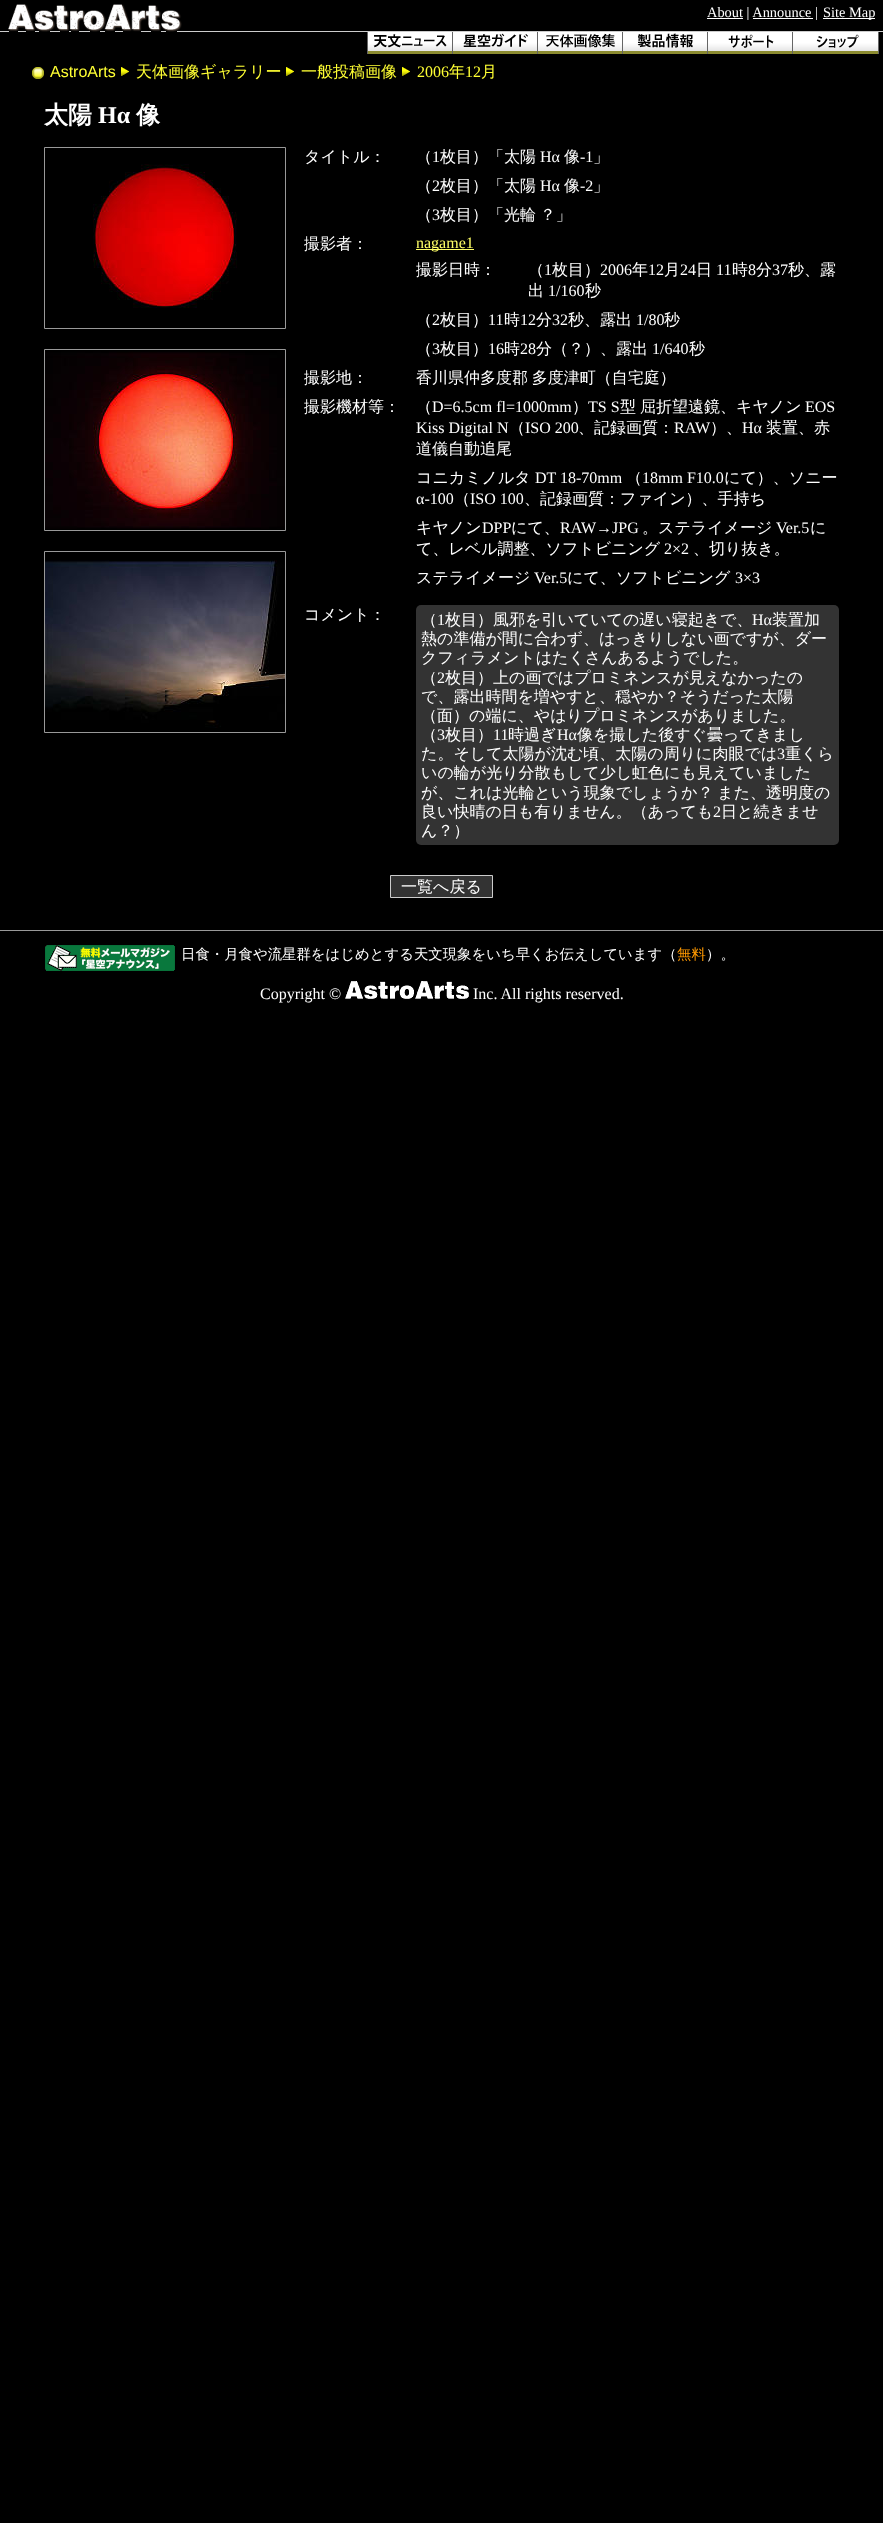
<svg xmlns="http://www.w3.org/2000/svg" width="883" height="2523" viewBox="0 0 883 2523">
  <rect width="100%" height="100%" fill="#000"/>
  <path d="M0 31h883v1H0z" fill="#ccc"/>
  <image x="8" y="4" width="174" height="28" href="img/1.png"/>
  <path d="M707 18h36v1H707z" fill="#fff"/>
  <path d="M823 18h52v1H823z" fill="#fff"/>
  <path d="M753 18h60v1H753z" fill="#fff"/>
  <path d="M367 32h1v22H367z" fill="#666"/>
  <image x="368" y="32" width="84" height="19" href="img/2.png"/>
  <path d="M368 51h84v3H368z" fill="#8b8b30"/>
  <path d="M452 32h1v22H452z" fill="#666"/>
  <image x="453" y="32" width="84" height="19" href="img/3.png"/>
  <path d="M453 51h84v3H453z" fill="#8b8b30"/>
  <path d="M537 32h1v22H537z" fill="#666"/>
  <image x="538" y="32" width="84" height="19" href="img/4.png"/>
  <path d="M538 51h84v3H538z" fill="#8b8b30"/>
  <path d="M622 32h1v22H622z" fill="#666"/>
  <image x="623" y="32" width="84" height="19" href="img/5.png"/>
  <path d="M623 51h84v3H623z" fill="#8b8b30"/>
  <path d="M707 32h1v22H707z" fill="#666"/>
  <image x="708" y="32" width="84" height="19" href="img/6.png"/>
  <path d="M708 51h84v3H708z" fill="#8b8b30"/>
  <path d="M792 32h1v22H792z" fill="#666"/>
  <image x="793" y="32" width="85" height="19" href="img/7.png"/>
  <path d="M878 32h1v22H878z" fill="#666"/>
  <path d="M793 51h85v3H793z" fill="#8b8b30"/>
  <image x="32" y="67" width="12" height="12" href="img/8.png"/>
  <image x="121" y="67" width="8" height="9" href="img/9.png"/>
  <image x="286" y="67" width="8" height="9" href="img/9.png"/>
  <image x="402" y="67" width="8" height="9" href="img/9.png"/>
  <path d="M44.5 147.5h241v181H44.5z" fill="none" stroke="#999"/>
  <image x="93" y="164" width="144" height="144" href="img/10.png"/>
  <path d="M44.5 349.5h241v181H44.5z" fill="none" stroke="#999"/>
  <image x="45" y="351" width="240" height="178" href="img/11.png"/>
  <path d="M44.5 551.5h241v181H44.5z" fill="none" stroke="#999"/>
  <image x="45" y="560" width="240" height="168" href="img/12.png"/>
  <path d="M416 249h58v1H416z" fill="#ff6"/>
  <rect x="416" y="605" width="423" height="240" rx="5" fill="#333"/>
  <path d="M390.5 875.5h102v22H390.5z" fill="#333" stroke="#ccc"/>
  <path d="M0 930h883v1H0z" fill="#999"/>
  <image x="45" y="945" width="130" height="26" href="img/13.png"/>
  <image x="345" y="981" width="124" height="18" href="img/14.png"/>
  <g font-family="Liberation Serif" font-size="14.4" fill="#fff">
    <text x="707" y="17">About | Announce |</text>
    <text x="823" y="17">Site Map</text>
  </g>
  <text x="50" y="77" font-family="Liberation Sans" font-size="16" fill="#ff3">AstroArts</text>
  <g font-family="WenQuanYi Zen Hei" font-size="16" font-weight="500" fill="#ff3">
    <text x="136" y="77">天体画像ギャラリー</text>
    <text x="301" y="77">一般投稿画像</text>
  </g>
  <text x="417" y="77" font-family="Liberation Serif" font-size="16" fill="#ff3">2006</text>
  <text x="449" y="77" font-family="WenQuanYi Zen Hei" font-size="16" font-weight="500" fill="#ff3">年</text>
  <text x="465" y="77" font-family="Liberation Serif" font-size="16" fill="#ff3">12</text>
  <text x="481" y="77" font-family="WenQuanYi Zen Hei" font-size="16" font-weight="500" fill="#ff3">月</text>
  <text x="44" y="123" font-family="WenQuanYi Zen Hei" font-size="24" font-weight="bold" fill="#fff">太陽</text>
  <text x="98" y="123" font-family="Liberation Serif" font-size="24" font-weight="bold" fill="#fff">Hα</text>
  <text x="136" y="123" font-family="WenQuanYi Zen Hei" font-size="24" font-weight="bold" fill="#fff">像</text>
  <g font-family="WenQuanYi Zen Hei" font-size="16" font-weight="500" fill="#fff">
    <text x="304" y="162">タイトル：</text>
    <text x="416" y="162">（</text>
  </g>
  <text x="432" y="162" font-family="Liberation Serif" font-size="16" fill="#fff">1</text>
  <text x="440" y="162" font-family="WenQuanYi Zen Hei" font-size="16" font-weight="500" fill="#fff">枚目）「太陽</text>
  <text x="540" y="162" font-family="Liberation Serif" font-size="16" fill="#fff">Hα</text>
  <text x="564" y="162" font-family="WenQuanYi Zen Hei" font-size="16" font-weight="500" fill="#fff">像</text>
  <text x="580" y="162" font-family="Liberation Serif" font-size="16" fill="#fff">-1</text>
  <g font-family="WenQuanYi Zen Hei" font-size="16" font-weight="500" fill="#fff">
    <text x="593" y="162">」</text>
    <text x="416" y="191">（</text>
  </g>
  <text x="432" y="191" font-family="Liberation Serif" font-size="16" fill="#fff">2</text>
  <text x="440" y="191" font-family="WenQuanYi Zen Hei" font-size="16" font-weight="500" fill="#fff">枚目）「太陽</text>
  <text x="540" y="191" font-family="Liberation Serif" font-size="16" fill="#fff">Hα</text>
  <text x="564" y="191" font-family="WenQuanYi Zen Hei" font-size="16" font-weight="500" fill="#fff">像</text>
  <text x="580" y="191" font-family="Liberation Serif" font-size="16" fill="#fff">-2</text>
  <g font-family="WenQuanYi Zen Hei" font-size="16" font-weight="500" fill="#fff">
    <text x="593" y="191">」</text>
    <text x="416" y="220">（</text>
  </g>
  <text x="432" y="220" font-family="Liberation Serif" font-size="16" fill="#fff">3</text>
  <g font-family="WenQuanYi Zen Hei" font-size="16" font-weight="500" fill="#fff">
    <text x="440" y="220" word-spacing="-1">枚目）「光輪 ？」</text>
    <text x="304" y="249">撮影者：</text>
  </g>
  <text x="416" y="248" font-family="Liberation Serif" font-size="16" fill="#ff6">nagame1</text>
  <g font-family="WenQuanYi Zen Hei" font-size="16" font-weight="500" fill="#fff">
    <text x="416" y="275">撮影日時：</text>
    <text x="528" y="275">（</text>
  </g>
  <text x="544" y="275" font-family="Liberation Serif" font-size="16" fill="#fff">1</text>
  <text x="552" y="275" font-family="WenQuanYi Zen Hei" font-size="16" font-weight="500" fill="#fff">枚目）</text>
  <text x="600" y="275" font-family="Liberation Serif" font-size="16" fill="#fff">2006</text>
  <text x="632" y="275" font-family="WenQuanYi Zen Hei" font-size="16" font-weight="500" fill="#fff">年</text>
  <text x="648" y="275" font-family="Liberation Serif" font-size="16" fill="#fff">12</text>
  <text x="664" y="275" font-family="WenQuanYi Zen Hei" font-size="16" font-weight="500" fill="#fff">月</text>
  <text x="680" y="275" font-family="Liberation Serif" font-size="16" fill="#fff">24</text>
  <text x="696" y="275" font-family="WenQuanYi Zen Hei" font-size="16" font-weight="500" fill="#fff">日</text>
  <text x="716" y="275" font-family="Liberation Serif" font-size="16" fill="#fff">11</text>
  <text x="732" y="275" font-family="WenQuanYi Zen Hei" font-size="16" font-weight="500" fill="#fff">時</text>
  <text x="748" y="275" font-family="Liberation Serif" font-size="16" fill="#fff">8</text>
  <text x="756" y="275" font-family="WenQuanYi Zen Hei" font-size="16" font-weight="500" fill="#fff">分</text>
  <text x="772" y="275" font-family="Liberation Serif" font-size="16" fill="#fff">37</text>
  <g font-family="WenQuanYi Zen Hei" font-size="16" font-weight="500" fill="#fff">
    <text x="788" y="275">秒、露</text>
    <text x="528" y="296">出</text>
  </g>
  <text x="548" y="296" font-family="Liberation Serif" font-size="16" fill="#fff">1/160</text>
  <g font-family="WenQuanYi Zen Hei" font-size="16" font-weight="500" fill="#fff">
    <text x="585" y="296">秒</text>
    <text x="416" y="325">（</text>
  </g>
  <text x="432" y="325" font-family="Liberation Serif" font-size="16" fill="#fff">2</text>
  <text x="440" y="325" font-family="WenQuanYi Zen Hei" font-size="16" font-weight="500" fill="#fff">枚目）</text>
  <text x="488" y="325" font-family="Liberation Serif" font-size="16" fill="#fff">11</text>
  <text x="504" y="325" font-family="WenQuanYi Zen Hei" font-size="16" font-weight="500" fill="#fff">時</text>
  <text x="520" y="325" font-family="Liberation Serif" font-size="16" fill="#fff">12</text>
  <text x="536" y="325" font-family="WenQuanYi Zen Hei" font-size="16" font-weight="500" fill="#fff">分</text>
  <text x="552" y="325" font-family="Liberation Serif" font-size="16" fill="#fff">32</text>
  <text x="568" y="325" font-family="WenQuanYi Zen Hei" font-size="16" font-weight="500" fill="#fff">秒、露出</text>
  <text x="636" y="325" font-family="Liberation Serif" font-size="16" fill="#fff">1/80</text>
  <g font-family="WenQuanYi Zen Hei" font-size="16" font-weight="500" fill="#fff">
    <text x="664" y="325">秒</text>
    <text x="416" y="354">（</text>
  </g>
  <text x="432" y="354" font-family="Liberation Serif" font-size="16" fill="#fff">3</text>
  <text x="440" y="354" font-family="WenQuanYi Zen Hei" font-size="16" font-weight="500" fill="#fff">枚目）</text>
  <text x="488" y="354" font-family="Liberation Serif" font-size="16" fill="#fff">16</text>
  <text x="504" y="354" font-family="WenQuanYi Zen Hei" font-size="16" font-weight="500" fill="#fff">時</text>
  <text x="520" y="354" font-family="Liberation Serif" font-size="16" fill="#fff">28</text>
  <text x="536" y="354" font-family="WenQuanYi Zen Hei" font-size="16" font-weight="500" fill="#fff">分（？）、露出</text>
  <text x="652" y="354" font-family="Liberation Serif" font-size="16" fill="#fff">1/640</text>
  <g font-family="WenQuanYi Zen Hei" font-size="16" font-weight="500" fill="#fff">
    <text x="689" y="354">秒</text>
    <text x="304" y="383">撮影地：</text>
    <text x="416" y="383" word-spacing="-1">香川県仲多度郡 多度津町（自宅庭）</text>
    <text x="304" y="412">撮影機材等：</text>
    <text x="416" y="412">（</text>
  </g>
  <text x="432" y="412" font-family="Liberation Serif" font-size="16" fill="#fff">D=6.5cm fl=1000mm</text>
  <text x="572" y="412" font-family="WenQuanYi Zen Hei" font-size="16" font-weight="500" fill="#fff">）</text>
  <text x="588" y="412" font-family="Liberation Serif" font-size="16" fill="#fff">TS S</text>
  <g font-family="WenQuanYi Zen Hei" font-size="16" font-weight="500" fill="#fff">
    <text x="620" y="412">型</text>
    <text x="640" y="412">屈折望遠鏡、キヤノン</text>
  </g>
  <g font-family="Liberation Serif" font-size="16" fill="#fff">
    <text x="805" y="412">EOS</text>
    <text x="416" y="433">Kiss Digital N</text>
  </g>
  <text x="509" y="433" font-family="WenQuanYi Zen Hei" font-size="16" font-weight="500" fill="#fff">（</text>
  <text x="525" y="433" font-family="Liberation Serif" font-size="16" fill="#fff">ISO 200</text>
  <text x="578" y="433" font-family="WenQuanYi Zen Hei" font-size="16" font-weight="500" fill="#fff">、記録画質：</text>
  <text x="674" y="433" font-family="Liberation Serif" font-size="16" fill="#fff">RAW</text>
  <text x="710" y="433" font-family="WenQuanYi Zen Hei" font-size="16" font-weight="500" fill="#fff">）、</text>
  <text x="742" y="433" font-family="Liberation Serif" font-size="16" fill="#fff">Hα</text>
  <g font-family="WenQuanYi Zen Hei" font-size="16" font-weight="500" fill="#fff">
    <text x="766" y="433">装置、赤</text>
    <text x="416" y="454">道儀自動追尾</text>
    <text x="416" y="483">コニカミノルタ</text>
  </g>
  <text x="535" y="483" font-family="Liberation Serif" font-size="16" fill="#fff">DT 18-70mm</text>
  <text x="626" y="483" font-family="WenQuanYi Zen Hei" font-size="16" font-weight="500" fill="#fff">（</text>
  <text x="642" y="483" font-family="Liberation Serif" font-size="16" fill="#fff">18mm F10.0</text>
  <text x="724" y="483" font-family="WenQuanYi Zen Hei" font-size="16" font-weight="500" fill="#fff">にて）、ソニー</text>
  <text x="416" y="504" font-family="Liberation Serif" font-size="16" fill="#fff">α-100</text>
  <text x="454" y="504" font-family="WenQuanYi Zen Hei" font-size="16" font-weight="500" fill="#fff">（</text>
  <text x="470" y="504" font-family="Liberation Serif" font-size="16" fill="#fff">ISO 100</text>
  <g font-family="WenQuanYi Zen Hei" font-size="16" font-weight="500" fill="#fff">
    <text x="524" y="504">、記録画質：ファイン）、手持ち</text>
    <text x="416" y="533">キヤノン</text>
  </g>
  <text x="482" y="533" font-family="Liberation Serif" font-size="16" fill="#fff">DPP</text>
  <text x="511" y="533" font-family="WenQuanYi Zen Hei" font-size="16" font-weight="500" fill="#fff">にて、</text>
  <text x="560" y="533" font-family="Liberation Serif" font-size="16" fill="#fff">RAW→JPG</text>
  <text x="642" y="533" font-family="WenQuanYi Zen Hei" font-size="16" font-weight="500" fill="#fff">。ステライメージ</text>
  <text x="776" y="533" font-family="Liberation Serif" font-size="16" fill="#fff">Ver.5</text>
  <g font-family="WenQuanYi Zen Hei" font-size="16" font-weight="500" fill="#fff">
    <text x="810" y="533">に</text>
    <text x="416" y="554">て、レベル調整、ソフトビニング</text>
  </g>
  <text x="664" y="554" font-family="Liberation Serif" font-size="16" fill="#fff">2×2</text>
  <g font-family="WenQuanYi Zen Hei" font-size="16" font-weight="500" fill="#fff">
    <text x="693" y="554">、切り抜き。</text>
    <text x="416" y="583">ステライメージ</text>
  </g>
  <text x="534" y="583" font-family="Liberation Serif" font-size="16" fill="#fff">Ver.5</text>
  <text x="567" y="583" font-family="WenQuanYi Zen Hei" font-size="16" font-weight="500" fill="#fff">にて、ソフトビニング</text>
  <text x="735" y="583" font-family="Liberation Serif" font-size="16" fill="#fff">3×3</text>
  <g font-family="WenQuanYi Zen Hei" font-size="16" font-weight="500" fill="#fff">
    <text x="304" y="620">コメント：</text>
    <text x="421" y="625">（</text>
  </g>
  <text x="437" y="625" font-family="Liberation Serif" font-size="16" fill="#fff">1</text>
  <text x="445" y="625" font-family="WenQuanYi Zen Hei" font-size="16" font-weight="500" fill="#fff">枚目）風邪を引いていての遅い寝起きで、</text>
  <text x="752" y="625" font-family="Liberation Serif" font-size="16" fill="#fff">Hα</text>
  <g font-family="WenQuanYi Zen Hei" font-size="16" font-weight="500" fill="#fff">
    <text x="772" y="625">装置加</text>
    <text x="421" y="644">熱の準備が間に合わず、はっきりしない画ですが、ダー</text>
    <text x="421" y="663">クフィラメントはたくさんあるようでした。</text>
    <text x="421" y="683">（</text>
  </g>
  <text x="437" y="683" font-family="Liberation Serif" font-size="16" fill="#fff">2</text>
  <g font-family="WenQuanYi Zen Hei" font-size="16" font-weight="500" fill="#fff">
    <text x="445" y="683">枚目）上の画ではプロミネンスが見えなかったの</text>
    <text x="421" y="702">で、露出時間を増やすと、穏やか？そうだった太陽</text>
    <text x="421" y="721">（面）の端に、やはりプロミネンスがありました。</text>
    <text x="421" y="740">（</text>
  </g>
  <text x="437" y="740" font-family="Liberation Serif" font-size="16" fill="#fff">3</text>
  <text x="445" y="740" font-family="WenQuanYi Zen Hei" font-size="16" font-weight="500" fill="#fff">枚目）</text>
  <text x="493" y="740" font-family="Liberation Serif" font-size="16" fill="#fff">11</text>
  <text x="508" y="740" font-family="WenQuanYi Zen Hei" font-size="16" font-weight="500" fill="#fff">時過ぎ</text>
  <text x="557" y="740" font-family="Liberation Serif" font-size="16" fill="#fff">Hα</text>
  <g font-family="WenQuanYi Zen Hei" font-size="16" font-weight="500" fill="#fff">
    <text x="577" y="740">像を撮した後すぐ曇ってきまし</text>
    <text x="421" y="759">た。そして太陽が沈む頃、太陽の周りに肉眼では</text>
  </g>
  <text x="777" y="759" font-family="Liberation Serif" font-size="16" fill="#fff">3</text>
  <g font-family="WenQuanYi Zen Hei" font-size="16" font-weight="500" fill="#fff">
    <text x="785" y="759">重くら</text>
    <text x="421" y="778">いの輪が光り分散もして少し虹色にも見えていました</text>
    <text x="421" y="798" word-spacing="-1">が、これは光輪という現象でしょうか？ また、透明度の</text>
    <text x="421" y="817">良い快晴の日も有りません。（あっても</text>
  </g>
  <text x="713" y="817" font-family="Liberation Serif" font-size="16" fill="#fff">2</text>
  <g font-family="WenQuanYi Zen Hei" font-size="16" font-weight="500" fill="#fff">
    <text x="721" y="817">日と続きませ</text>
    <text x="421" y="836">ん？）</text>
    <text x="401" y="892">一覧へ戻る</text>
  </g>
  <text x="181" y="959" font-family="WenQuanYi Zen Hei" font-size="14.4" font-weight="500" fill="#fff">日食・月食や流星群をはじめとする天文現象をいち早くお伝えしています（</text>
  <text x="677" y="959" font-family="WenQuanYi Zen Hei" font-size="14.4" font-weight="500" fill="#f90">無料</text>
  <text x="706" y="959" font-family="WenQuanYi Zen Hei" font-size="14.4" font-weight="500" fill="#fff">）。</text>
  <g font-family="Liberation Serif" font-size="16" fill="#fff">
    <text x="260" y="999">Copyright ©</text>
    <text x="473" y="999">Inc. All rights reserved.</text>
  </g>
</svg>
